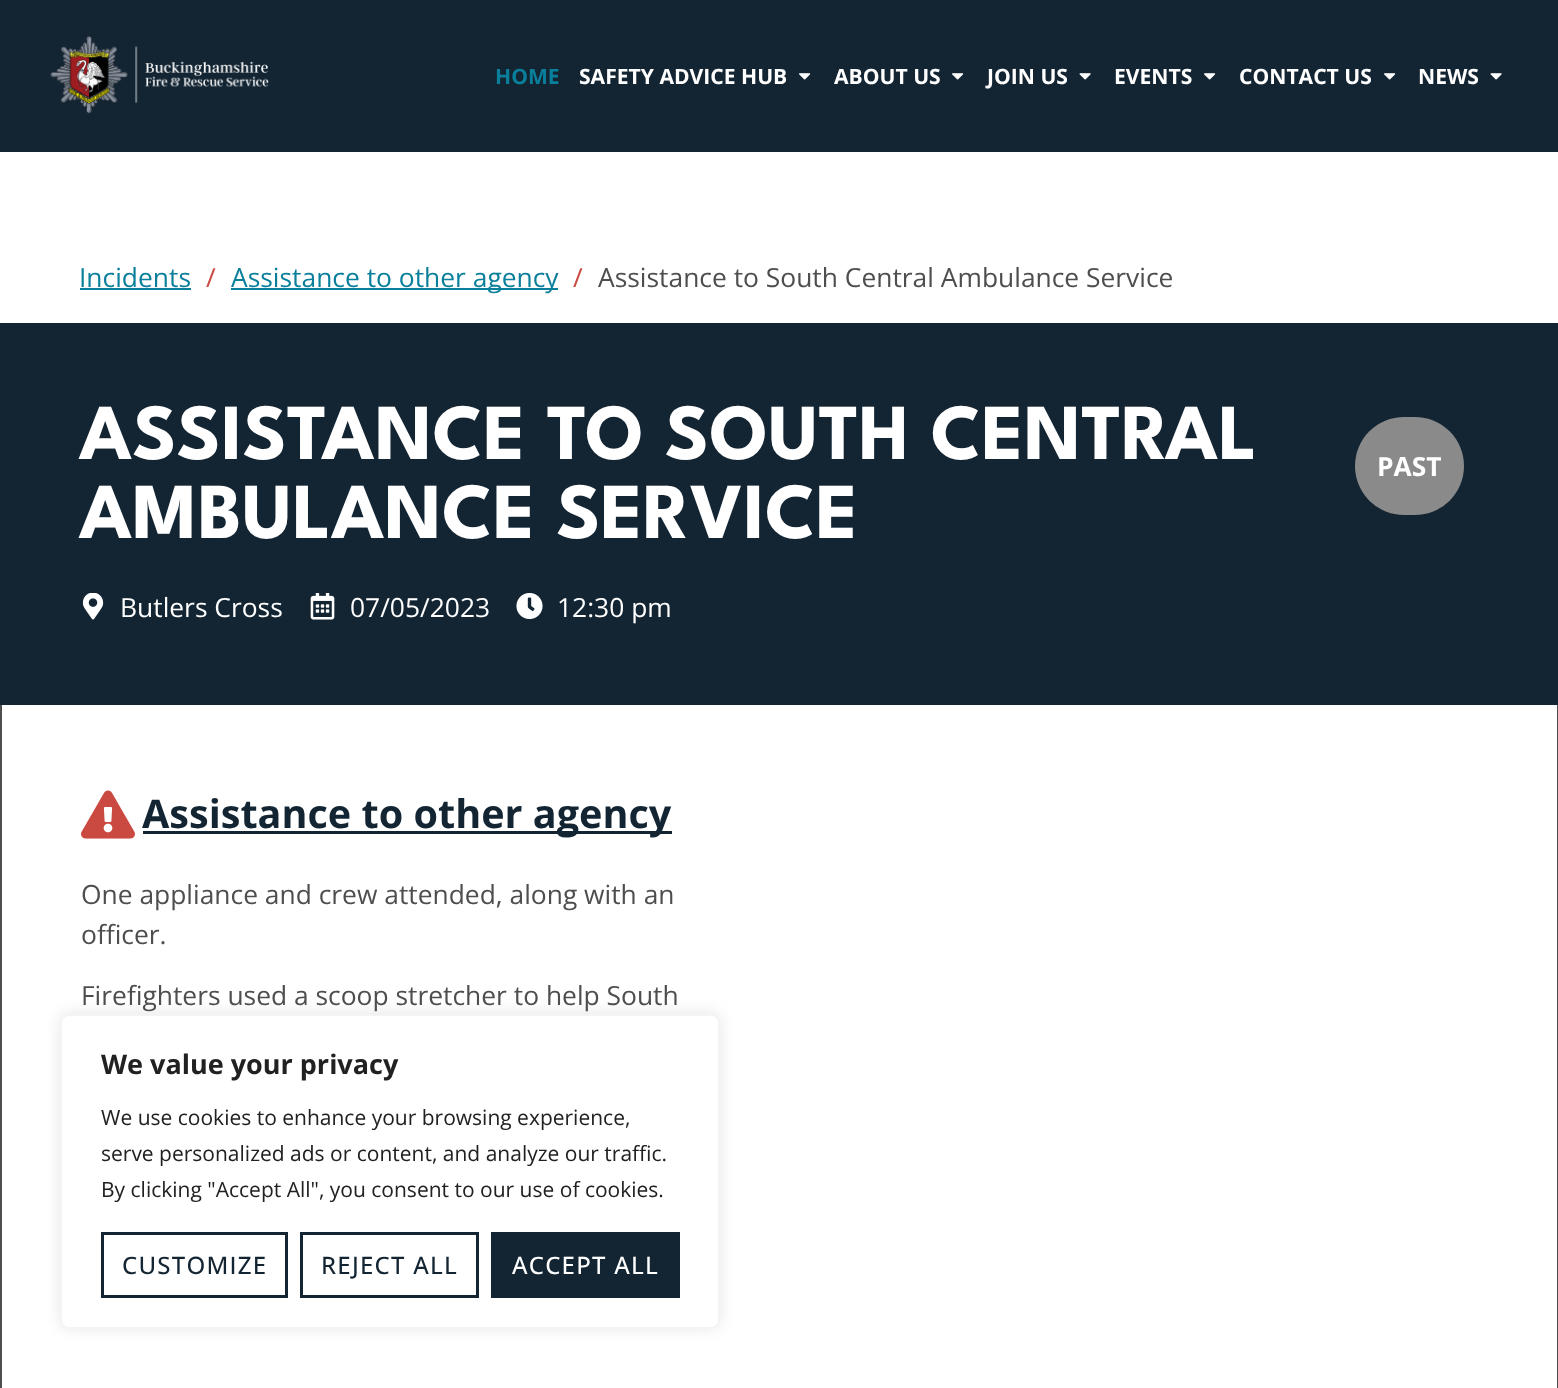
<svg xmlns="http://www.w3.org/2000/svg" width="1558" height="1388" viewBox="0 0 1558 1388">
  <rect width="100%" height="100%" fill="#fff"/>
  <path d="M0 0h1558v152H0z" fill="#132533"/>
  <image x="50" y="36" width="219" height="78" href="img/1.png"/>
  <image x="799" y="73" width="12" height="7" href="img/2.png"/>
  <image x="952" y="73" width="12" height="7" href="img/2.png"/>
  <image x="1079" y="73" width="12" height="7" href="img/3.png"/>
  <image x="1204" y="73" width="12" height="7" href="img/2.png"/>
  <image x="1384" y="73" width="12" height="7" href="img/2.png"/>
  <image x="1490" y="73" width="12" height="7" href="img/3.png"/>
  <path d="M80 288h111v2H80z" fill="#097f9b"/>
  <path d="M231 288h327v2H231z" fill="#097f9b"/>
  <path d="M0 323h1558v382H0z" fill="#132533"/>
  <rect x="1355" y="417" width="109" height="98" rx="49" fill="#8a8a8a"/>
  <image x="82" y="593" width="22" height="27" href="img/4.png"/>
  <image x="310" y="593" width="25" height="27" href="img/5.png"/>
  <image x="516" y="593" width="27" height="27" href="img/6.png"/>
  <path d="M1557 705h1v683H1557z" fill="#4e4e4e"/>
  <path d="M0 705h2v683H0z" fill="#4e4e4e"/>
  <image x="81" y="790" width="54" height="49" href="img/7.png"/>
  <path d="M143 831h529v3H143z" fill="#132533"/>
  <rect x="60" y="1013" width="660" height="315" rx="9" fill="#acabab4d" filter="blur(7.5px)"/>
  <rect x="61" y="1015" width="658" height="313" rx="8" fill="#fff" stroke="#f4f4f4" stroke-width="2"/>
  <path d="M102.5 1233.5h184v63H102.5z" fill="none" stroke="#132533" stroke-width="3"/>
  <path d="M301.5 1233.5h176v63H301.5z" fill="none" stroke="#132533" stroke-width="3"/>
  <path d="M491 1232h189v66H491z" fill="#132533"/>
  <text x="495" y="84" font-family="Open Sans" font-size="21.1" font-weight="bold" fill="#097f9b">HOME</text>
  <g font-family="Open Sans" font-size="21.1" font-weight="bold" fill="#fff">
    <text x="579" y="84">SAFETY ADVICE HUB</text>
    <text x="834" y="84">ABOUT US</text>
    <text x="987" y="84">JOIN US</text>
    <text x="1114" y="84">EVENTS</text>
    <text x="1239" y="84">CONTACT US</text>
    <text x="1418" y="84">NEWS</text>
  </g>
  <text x="79" y="287" font-family="Open Sans" font-size="26.4" fill="#097f9b">Incidents</text>
  <text x="206" y="287" font-family="Open Sans" font-size="26.4" fill="#ca4940">/</text>
  <text x="231" y="287" font-family="Open Sans" font-size="26.4" fill="#097f9b">Assistance to other agency</text>
  <text x="573" y="287" font-family="Open Sans" font-size="26.4" fill="#ca4940">/</text>
  <text x="598" y="287" font-family="Open Sans" font-size="26.4" fill="#4e4e4e">Assistance to South Central Ambulance Service</text>
  <g font-family="League Spartan" font-size="79.25" font-weight="bold" fill="#fff">
    <text x="79" y="459">ASSISTANCE TO SOUTH CENTRAL</text>
    <text x="79" y="538">AMBULANCE SERVICE</text>
  </g>
  <text x="1377" y="476" font-family="Open Sans" font-size="26.4" font-weight="bold" fill="#fff">PAST</text>
  <g font-family="Open Sans" font-size="26.4" fill="#fff">
    <text x="120" y="617">Butlers Cross</text>
    <text x="350" y="617">07/05/2023</text>
    <text x="557" y="617">12:30 pm</text>
  </g>
  <text x="142" y="828" font-family="Open Sans" font-size="39.6" font-weight="bold" fill="#132533">Assistance to other agency</text>
  <g font-family="Open Sans" font-size="26.4" fill="#4e4e4e">
    <text x="81" y="904">One appliance and crew attended, along with an</text>
    <text x="81" y="944">officer.</text>
    <text x="81" y="1005">Firefighters used a scoop stretcher to help South</text>
  </g>
  <text x="101" y="1074" font-family="Open Sans" font-size="27" font-weight="bold" fill="#212121">We value your privacy</text>
  <g font-family="Open Sans" font-size="21" fill="#212121">
    <text x="101" y="1125">We use cookies to enhance your browsing experience,</text>
    <text x="101" y="1161">serve personalized ads or content, and analyze our traffic.</text>
    <text x="101" y="1197">By clicking "Accept All", you consent to our use of cookies.</text>
  </g>
  <g font-family="Open Sans" font-size="24" font-weight="500" letter-spacing="1.25" fill="#132533">
    <text x="122" y="1274">CUSTOMIZE</text>
    <text x="321" y="1274">REJECT ALL</text>
  </g>
  <text x="512" y="1274" font-family="Open Sans" font-size="24" font-weight="500" letter-spacing="1.25" fill="#fff">ACCEPT ALL</text>
</svg>
